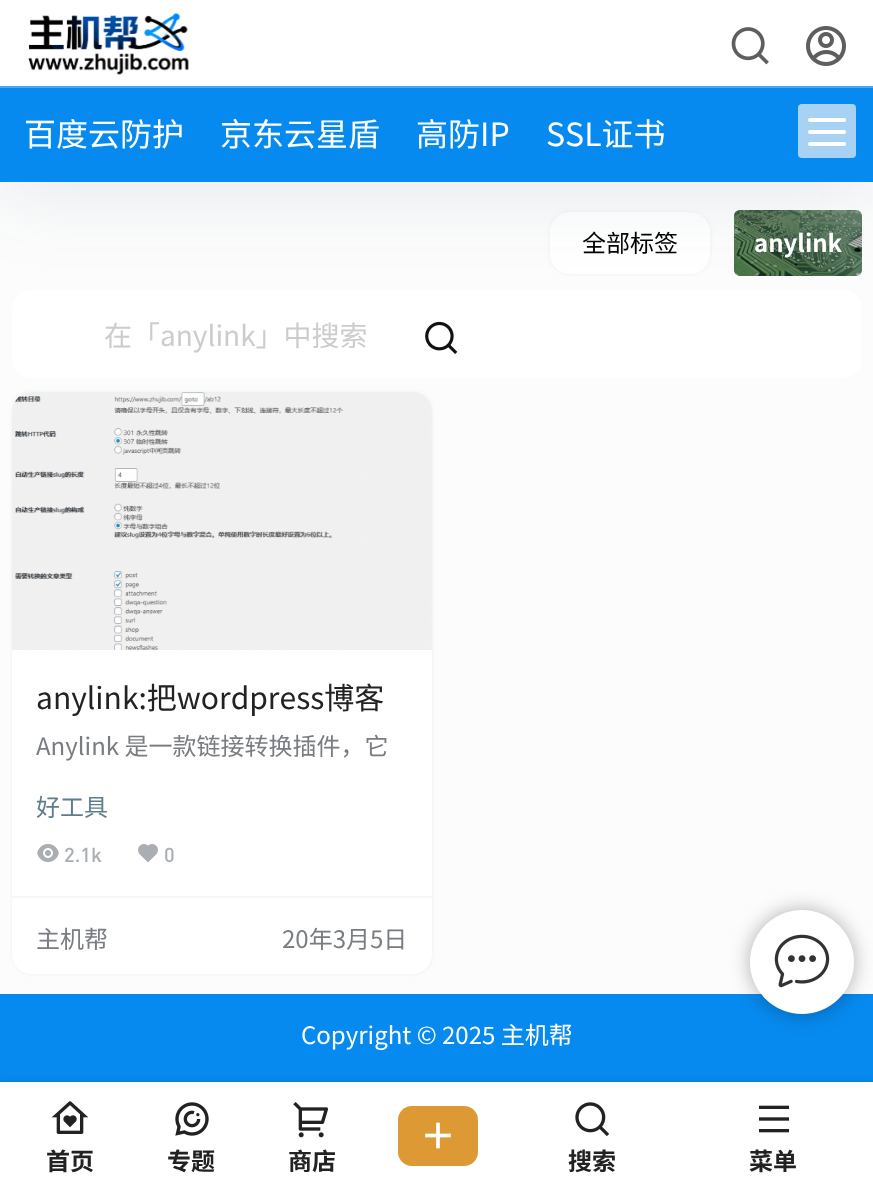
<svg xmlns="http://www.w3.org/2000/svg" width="873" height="1191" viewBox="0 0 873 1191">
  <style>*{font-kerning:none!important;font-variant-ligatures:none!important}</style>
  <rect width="100%" height="100%" fill="#fcfcfc"/>
  <rect x="550" y="212" width="160" height="62" rx="20" fill="#627c991a" filter="blur(2px)"/>
  <rect x="550" y="212" width="160" height="62" rx="20" fill="#fff"/>
  <image x="734" y="210" width="128" height="66" href="img/4.png"/>
  <rect x="734" y="210" width="128" height="66" rx="6" fill="#00000042"/>
  <rect x="12" y="290" width="850" height="88" rx="20" fill="#fff"/>
  <path d="M0 10h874v182H0z" fill="#113a5d1a" filter="blur(40px)"/>
  <path d="M0 0h873v86H0z" fill="#fff"/>
  <path d="M0 88h873v94H0z" fill="#078aef"/>
  <path d="M0 86h873v2H0z" fill="#4da8ed"/>
  <image x="28" y="13" width="161" height="62" href="img/1.png"/>
  <image x="731" y="27" width="38" height="38" href="img/2.png"/>
  <image x="806" y="26" width="40" height="40" href="img/3.png"/>
  <rect x="798" y="104" width="58" height="54" rx="4" fill="#a7d2f4"/>
  <rect x="808" y="118" width="38" height="4" rx="2" fill="#fff"/>
  <rect x="808" y="130" width="38" height="4" rx="2" fill="#fff"/>
  <rect x="808" y="142" width="38" height="4" rx="2" fill="#fff"/>
  <image x="425" y="321" width="33" height="33" href="img/5.png"/>
  <rect x="12" y="392" width="420" height="582" rx="20" fill="#627c991a" filter="blur(2px)"/>
  <rect x="12" y="392" width="420" height="582" rx="20" fill="#fff"/>
  <path d="M32 392H412C423 392 432 401 432 412V650H12V412C12 401 21 392 32 392Z" fill="#f5f6f7"/>
  <image x="12" y="392" width="420" height="258" href="img/6.png"/>
  <image x="37" y="844" width="22" height="18" href="img/7.png"/>
  <image x="138" y="844" width="20" height="19" href="img/8.png"/>
  <path d="M12 896h420v2H12z" fill="#f5f6f7"/>
  <path d="M0 994h873v88H0z" fill="#078aef"/>
  <rect x="750" y="910" width="104" height="104" rx="52" fill="#0000004d" filter="blur(10px)"/>
  <circle cx="802" cy="962" r="52" fill="#fff"/>
  <image x="774" y="934" width="56" height="54" href="img/9.png"/>
  <path d="M0 1080h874v110H0z" fill="#1a1a1a1a" filter="blur(3px)"/>
  <path d="M0 1082h873v109H0z" fill="#fff"/>
  <image x="51" y="1101" width="38" height="33" href="img/10.png"/>
  <image x="175" y="1102" width="34" height="34" href="img/11.png"/>
  <image x="293" y="1102" width="36" height="36" href="img/12.png"/>
  <rect x="398" y="1106" width="80" height="60" rx="14" fill="#d93"/>
  <image x="425" y="1122" width="26" height="27" href="img/13.png"/>
  <image x="575" y="1102" width="35" height="35" href="img/14.png"/>
  <image x="759" y="1105" width="30" height="28" href="img/15.png"/>
  <g font-family="Noto Sans CJK SC" font-size="32" fill="#fff">
    <text x="24" y="146">百度云防护</text>
    <text x="220" y="146">京东云星盾</text>
    <text x="416" y="146">高防IP</text>
    <text x="546" y="146">SSL证书</text>
  </g>
  <text x="582" y="252" font-family="Noto Sans CJK SC" font-size="24" fill="#000">全部标签</text>
  <text x="754" y="252" font-family="Noto Sans CJK SC" font-size="24" font-weight="bold" fill="#fff">anylink</text>
  <text x="104" y="346" font-family="Noto Sans CJK SC" font-size="28" fill="#ccc">在「anylink」中搜索</text>
  <text x="36" y="709" font-family="Noto Sans CJK SC" font-size="30" fill="#222">anylink:把wordpress博客</text>
  <text x="36" y="755" font-family="Noto Sans CJK SC" font-size="24" fill="#797c80">Anylink 是一款链接转换插件，它</text>
  <text x="36" y="816" font-family="Noto Sans CJK SC" font-size="24" fill="#607d8b">好工具</text>
  <g font-family="DIN" font-size="20" font-weight="500" fill="#aaaeb3">
    <text x="64" y="862">2.1k</text>
    <text x="164" y="862">0</text>
  </g>
  <g font-family="Noto Sans CJK SC" font-size="24" fill="#797c80">
    <text x="36" y="948">主机帮</text>
    <text x="282" y="948">20年3月5日</text>
  </g>
  <text x="301" y="1044" font-family="Noto Sans CJK SC" font-size="24" fill="#fff">Copyright © 2025 主机帮</text>
  <g font-family="Noto Sans CJK SC" font-size="24" font-weight="bold" fill="#222">
    <text x="46" y="1170">首页</text>
    <text x="167" y="1170">专题</text>
    <text x="288" y="1170">商店</text>
    <text x="568" y="1170">搜索</text>
    <text x="749" y="1170">菜单</text>
  </g>
</svg>
